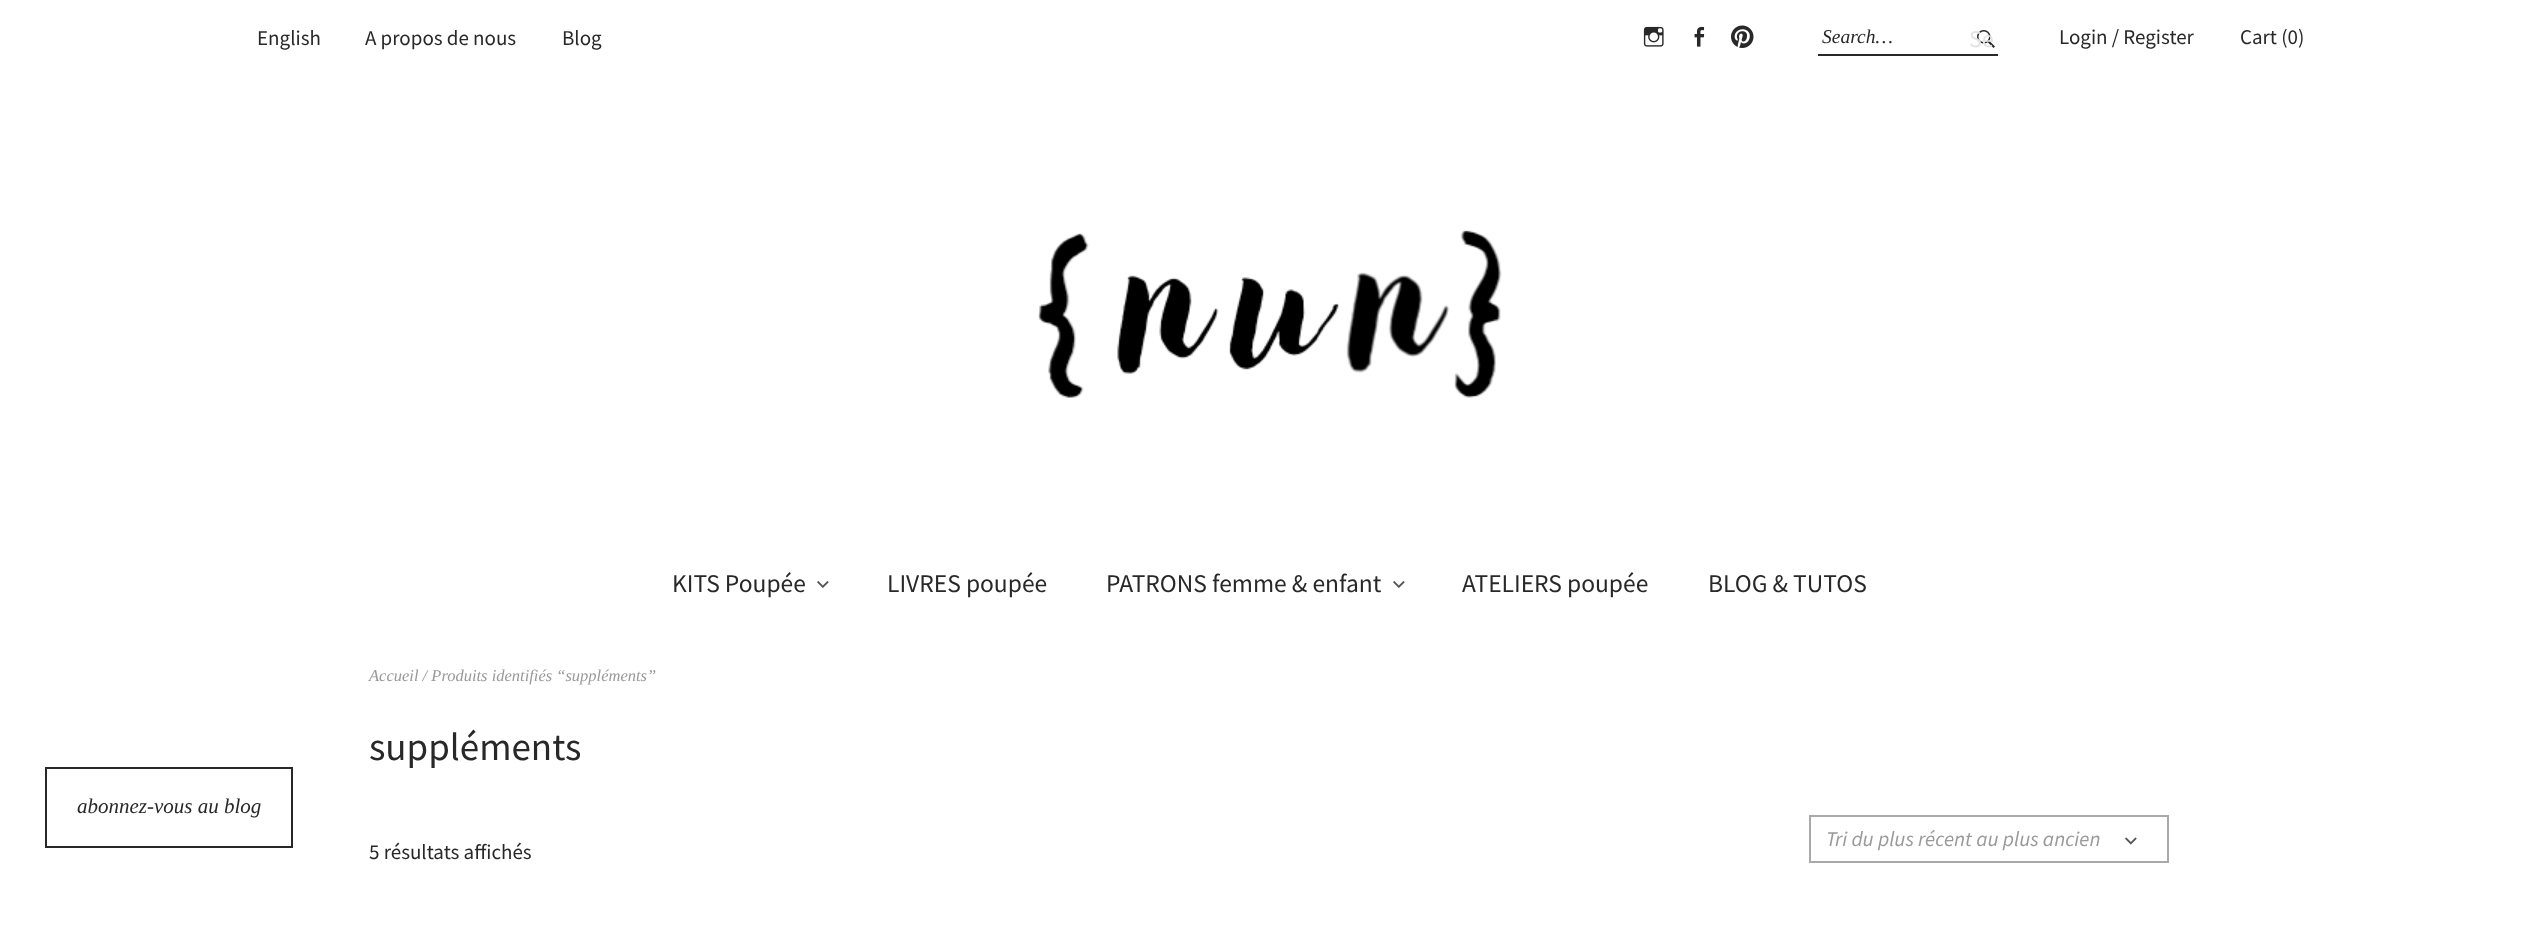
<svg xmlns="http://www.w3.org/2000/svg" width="2537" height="928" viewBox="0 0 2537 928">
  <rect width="100%" height="100%" fill="#fff"/>
  <image x="1643" y="26" width="21" height="21" href="img/1.png"/>
  <image x="1694" y="26" width="11" height="21" href="img/2.png"/>
  <image x="1731" y="25" width="23" height="23" href="img/3.png"/>
  <path d="M1818 54h180v2H1818z" fill="#282828"/>
  <image x="1977" y="30" width="18" height="18" href="img/4.png"/>
  <image x="1038" y="230" width="464" height="168" href="img/5.png"/>
  <image x="817" y="581" width="12" height="7" href="img/6.png"/>
  <image x="1393" y="581" width="12" height="7" href="img/6.png"/>
  <path d="M46 768h246v79H46z" fill="none" stroke="#282828" stroke-width="2"/>
  <path d="M1810 816h358v46H1810z" fill="none" stroke="#a9a9a9" stroke-width="2"/>
  <image x="2125" y="837" width="12" height="8" href="img/7.png"/>
  <g font-family="Source Sans Pro" font-size="21" fill="#282828">
    <text x="257" y="45">English</text>
    <text x="365" y="45">A propos de nous</text>
    <text x="562" y="45">Blog</text>
  </g>
  <text x="1822" y="43" font-family="Liberation Serif" font-size="19.5" font-style="italic" fill="#282828">Search…</text>
  <text x="1969" y="47" font-family="Source Sans Pro" font-size="24" fill="#e3e3e3">Se</text>
  <g font-family="Source Sans Pro" font-size="21" fill="#282828">
    <text x="2059" y="44">Login / Register</text>
    <text x="2240" y="44">Cart (0)</text>
  </g>
  <g font-family="Source Sans Pro" font-size="25.5" fill="#282828">
    <text x="672" y="592">KITS Poupée</text>
    <text x="887" y="592">LIVRES poupée</text>
    <text x="1106" y="592">PATRONS femme &amp; enfant</text>
    <text x="1462" y="592">ATELIERS poupée</text>
    <text x="1708" y="592">BLOG &amp; TUTOS</text>
  </g>
  <text x="77" y="813" font-family="Liberation Serif" font-size="21" font-style="italic" fill="#282828">abonnez-vous au blog</text>
  <text x="369" y="681" font-family="Liberation Serif" font-size="16.5" font-style="italic" fill="#999">Accueil / Produits identifiés “suppléments”</text>
  <text x="369" y="760" font-family="Source Sans Pro" font-size="39" fill="#282828">suppléments</text>
  <text x="369" y="859" font-family="Source Sans Pro" font-size="21" fill="#282828">5 résultats affichés</text>
  <text x="1826" y="846" font-family="Source Sans Pro" font-size="21" font-style="italic" fill="#999">Tri du plus récent au plus ancien</text>
</svg>
